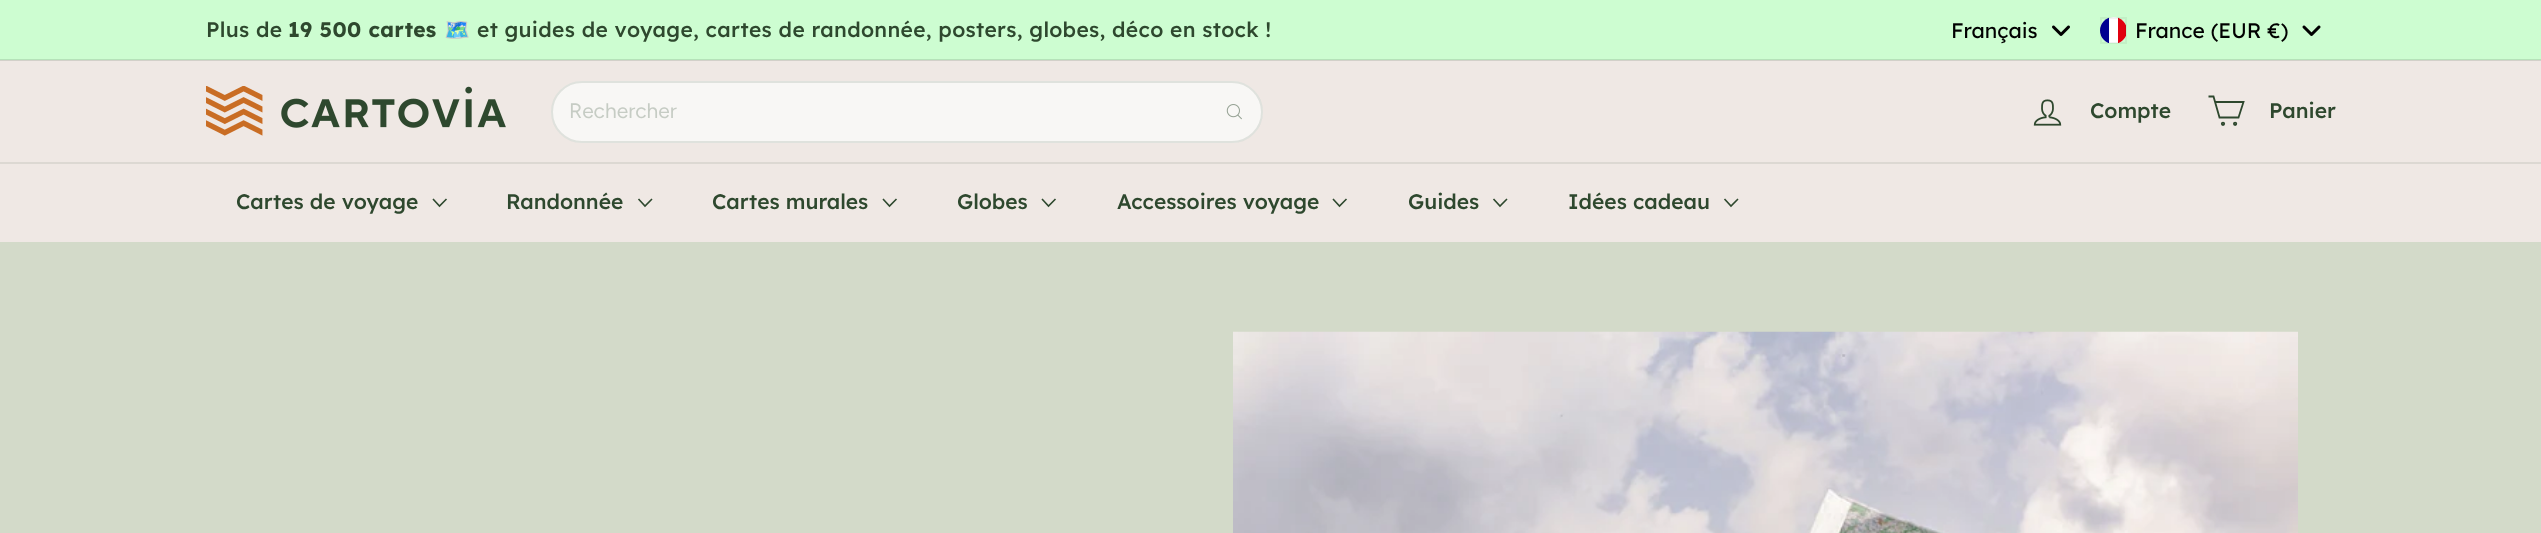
<svg xmlns="http://www.w3.org/2000/svg" width="2541" height="533" viewBox="0 0 2541 533">
  <defs>
    <clipPath id="clip1"><rect x="2100" y="17" width="27" height="27" rx="13.5"/></clipPath>
  </defs>
  <rect width="100%" height="100%" fill="#d3dac9"/>
  <path d="M0 0h2541v59H0z" fill="#cdfdd1"/>
  <path d="M0 59h2541v1H0z" fill="#b5e2b9"/>
  <image x="2052" y="25" width="18" height="11" href="img/1.png"/>
  <image x="2302" y="25" width="19" height="11" href="img/2.png"/>
  <g clip-path="url(#clip1)">
    <path d="M2113.5 17H2126V43H2100V30.5C2100 23 2106 17 2113.5 17Z" fill="#fff"/>
    <path d="M2100 17h9v26H2100z" fill="#000091"/>
    <path d="M2118 17h8v26H2118z" fill="#e1000f"/>
  </g>
  <path d="M2101 18h25v25H2101z" fill="none" stroke="#0000000d" stroke-width="2"/>
  <path d="M0 61h2541v101H0z" fill="#efe8e4"/>
  <path d="M0 60h2541v1H0z" fill="#d2d0c9"/>
  <image x="206" y="86" width="300" height="50" href="img/3.png"/>
  <rect x="551" y="81" width="712" height="62" rx="31" fill="#f8f7f5"/>
  <rect x="552" y="82" width="710" height="60" rx="30" fill="none" stroke="#2e482e1f" stroke-width="2"/>
  <image x="1226" y="104" width="16" height="16" href="img/4.png"/>
  <image x="2033" y="99" width="29" height="27" href="img/5.png"/>
  <path d="M2215 102H2243.5L2238.5 117.5H2219.5L2213.5 96.5H2208.5" fill="none" stroke="#2e482e" stroke-width="1.8"/>
  <circle cx="2223" cy="123.8" r="1.2" fill="none" stroke="#2e482e" stroke-width="1.8"/>
  <circle cx="2235.1" cy="123.8" r="1.2" fill="none" stroke="#2e482e" stroke-width="1.8"/>
  <path d="M0 164h2541v78H0z" fill="#efe8e4"/>
  <path d="M0 162h2541v2H0z" fill="#dcd8d2"/>
  <path d="M433 199L439.5 206L446.5 199" fill="none" stroke="#2e482e" stroke-width="1.6"/>
  <path d="M638.5 199L645 206L652 199" fill="none" stroke="#2e482e" stroke-width="1.6"/>
  <path d="M883 199L889.5 206L896.5 199" fill="none" stroke="#2e482e" stroke-width="1.6"/>
  <path d="M1042 199L1048.5 206L1055.5 199" fill="none" stroke="#2e482e" stroke-width="1.6"/>
  <path d="M1333 199L1339.5 206L1346.5 199" fill="none" stroke="#2e482e" stroke-width="1.6"/>
  <path d="M1493.5 199L1500 206L1507 199" fill="none" stroke="#2e482e" stroke-width="1.6"/>
  <path d="M1724.5 199L1731 206L1738 199" fill="none" stroke="#2e482e" stroke-width="1.6"/>
  <image x="1233" y="331" width="1065" height="202" href="img/6.png"/>
  <text x="206" y="37" font-family="Lexend" font-size="21" font-weight="500" letter-spacing="0.32" fill="#2e482e">Plus de</text>
  <text x="288" y="37" font-family="Lexend" font-size="21" font-weight="bold" letter-spacing="0.32" fill="#2e482e">19 500 cartes</text>
  <text x="444" y="37" font-family="Noto Color Emoji" font-size="21" font-weight="bold" letter-spacing="0.32" fill="#2e482e">🗺️</text>
  <text x="477" y="37" font-family="Lexend" font-size="21" font-weight="500" letter-spacing="0.32" fill="#2e482e">et guides de voyage, cartes de randonnée, posters, globes, déco en stock !</text>
  <g font-family="Lexend" font-size="21" fill="#000">
    <text x="1951" y="38">Français</text>
    <text x="2135" y="38">France (EUR €)</text>
  </g>
  <text x="569" y="118" font-family="Figtree" font-size="21" fill="#c6ccc4">Rechercher</text>
  <g font-family="Lexend" font-size="21" font-weight="500" fill="#2e482e">
    <text x="2090" y="118">Compte</text>
    <text x="2269" y="118">Panier</text>
    <text x="236" y="209">Cartes de voyage</text>
    <text x="506" y="209">Randonnée</text>
    <text x="712" y="209">Cartes murales</text>
    <text x="957" y="209">Globes</text>
    <text x="1117" y="209">Accessoires voyage</text>
    <text x="1408" y="209">Guides</text>
    <text x="1568" y="209">Idées cadeau</text>
  </g>
</svg>
